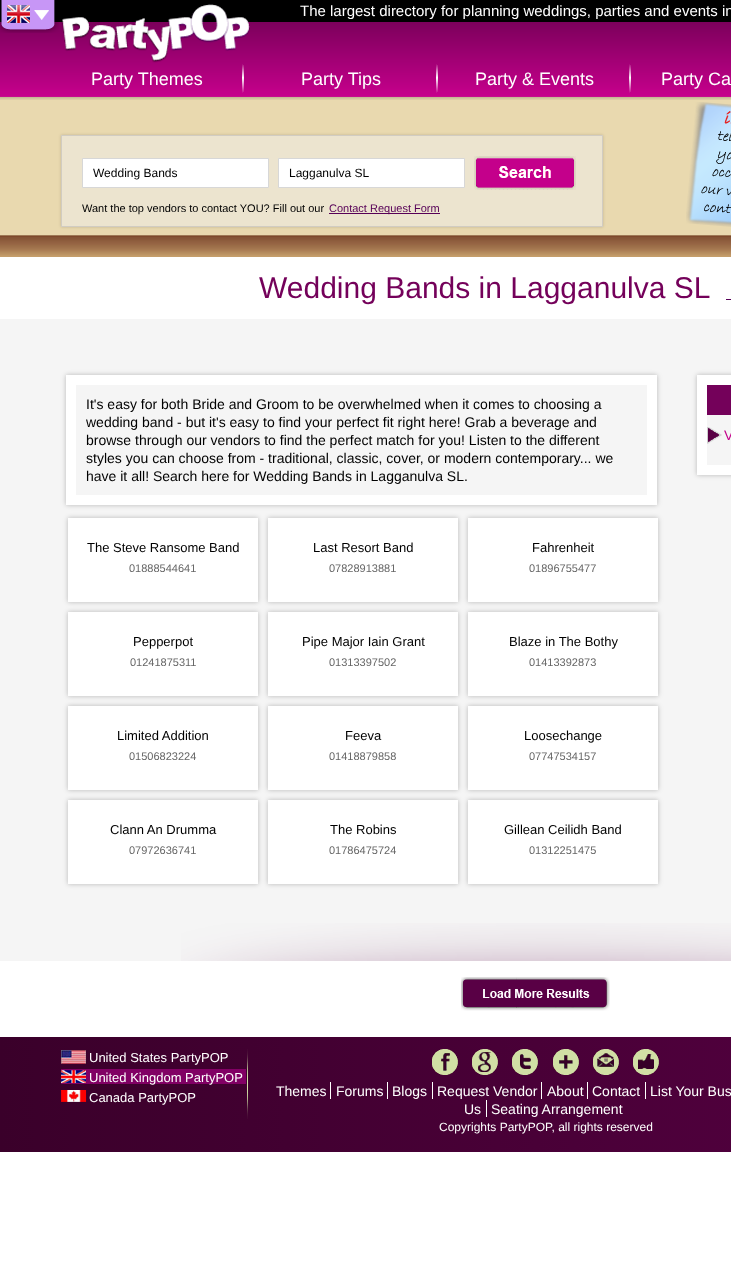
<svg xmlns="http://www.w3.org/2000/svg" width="731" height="1279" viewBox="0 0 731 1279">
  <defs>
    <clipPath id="clip1"><path d="M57 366H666V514H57ZM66 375H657V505H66Z" clip-rule="evenodd"/></clipPath>
    <linearGradient id="g1" gradientUnits="userSpaceOnUse" x1="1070" y1="1095" x2="0" y2="1095"><stop offset="0" stop-color="#580044"/><stop offset="1" stop-color="#3a002a"/></linearGradient>
  </defs>
  <rect width="100%" height="100%" fill="#fff"/>
  <path d="M0 96h731v139H0z" fill="#e9d9af"/>
  <image x="0" y="0" width="731" height="257" href="img/1.png"/>
  <image x="61" y="4" width="189" height="59" href="img/2.png"/>
  <image x="0" y="0" width="59" height="33" href="img/3.png"/>
  <image x="242" y="64" width="2" height="29" href="img/4.png"/>
  <image x="436" y="64" width="2" height="29" href="img/4.png"/>
  <image x="629" y="64" width="2" height="29" href="img/5.png"/>
  <path d="M61 135h542v92H61z" fill="#0000002b" filter="blur(1.5px)"/>
  <path d="M61.5 135.5h541v91H61.5z" fill="#ece4cf" stroke="#d1ccc2"/>
  <path d="M82.5 158.5h186v29H82.5z" fill="#fff" stroke="#d7d7d7"/>
  <path d="M278.5 158.5h186v29H278.5z" fill="#fff" stroke="#d7d7d7"/>
  <image x="474" y="156" width="102" height="34" href="img/6.png"/>
  <image x="686" y="102" width="45" height="125" href="img/7.png"/>
  <path d="M329 213h111v1H329z" fill="#570057"/>
  <path d="M0 319h731v642H0z" fill="#f5f5f5"/>
  <path d="M726 299h5v1H726z" fill="#570057"/>
  <image x="181" y="923" width="550" height="38" href="img/8.png"/>
  <g clip-path="url(#clip1)">
    <path d="M66 375h591v130H66z" fill="#00000040" filter="blur(2.5px)"/>
  </g>
  <path d="M71 380h581v120H71z" fill="none" stroke="#fff" stroke-width="10"/>
  <path d="M68 518h190v84H68z" fill="#00000040" filter="blur(2.5px)"/>
  <path d="M68 518h190v84H68z" fill="#fff"/>
  <path d="M268 518h190v84H268z" fill="#00000040" filter="blur(2.5px)"/>
  <path d="M268 518h190v84H268z" fill="#fff"/>
  <path d="M468 518h190v84H468z" fill="#00000040" filter="blur(2.5px)"/>
  <path d="M468 518h190v84H468z" fill="#fff"/>
  <path d="M68 612h190v84H68z" fill="#00000040" filter="blur(2.5px)"/>
  <path d="M68 612h190v84H68z" fill="#fff"/>
  <path d="M268 612h190v84H268z" fill="#00000040" filter="blur(2.5px)"/>
  <path d="M268 612h190v84H268z" fill="#fff"/>
  <path d="M468 612h190v84H468z" fill="#00000040" filter="blur(2.5px)"/>
  <path d="M468 612h190v84H468z" fill="#fff"/>
  <path d="M68 706h190v84H68z" fill="#00000040" filter="blur(2.5px)"/>
  <path d="M68 706h190v84H68z" fill="#fff"/>
  <path d="M268 706h190v84H268z" fill="#00000040" filter="blur(2.5px)"/>
  <path d="M268 706h190v84H268z" fill="#fff"/>
  <path d="M468 706h190v84H468z" fill="#00000040" filter="blur(2.5px)"/>
  <path d="M468 706h190v84H468z" fill="#fff"/>
  <path d="M68 800h190v84H68z" fill="#00000040" filter="blur(2.5px)"/>
  <path d="M68 800h190v84H68z" fill="#fff"/>
  <path d="M268 800h190v84H268z" fill="#00000040" filter="blur(2.5px)"/>
  <path d="M268 800h190v84H268z" fill="#fff"/>
  <path d="M468 800h190v84H468z" fill="#00000040" filter="blur(2.5px)"/>
  <path d="M468 800h190v84H468z" fill="#fff"/>
  <path d="M697 375h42v100H697z" fill="#00000040" filter="blur(2.5px)"/>
  <path d="M697 375h34v100H697z" fill="#fff"/>
  <path d="M707 385h24v30H707z" fill="#74015a"/>
  <path d="M707 415h24v50H707z" fill="#f5f5f5"/>
  <image x="707" y="427" width="15" height="17" href="img/9.png"/>
  <image x="461" y="977" width="149" height="34" href="img/10.png"/>
  <path d="M0 1037h731v115H0z" fill="url(#g1)"/>
  <image x="247" y="1049" width="1" height="70" href="img/11.png"/>
  <image x="61" y="1050" width="25" height="14" href="img/12.png"/>
  <path d="M61 1069h185v15H61z" fill="#810064"/>
  <image x="61" y="1070" width="25" height="13" href="img/13.png"/>
  <image x="61" y="1090" width="26" height="12" href="img/14.png"/>
  <image x="432" y="1049" width="26" height="26" href="img/15.png"/>
  <image x="472" y="1049" width="26" height="26" href="img/16.png"/>
  <image x="512" y="1049" width="26" height="26" href="img/17.png"/>
  <image x="553" y="1049" width="26" height="26" href="img/18.png"/>
  <image x="593" y="1049" width="26" height="26" href="img/19.png"/>
  <image x="633" y="1049" width="26" height="26" href="img/20.png"/>
  <path d="M330 1082h1v17H330z" fill="#fff"/>
  <path d="M387 1082h1v17H387z" fill="#fff"/>
  <path d="M432 1082h1v17H432z" fill="#fff"/>
  <path d="M541 1082h1v17H541z" fill="#fff"/>
  <path d="M587 1082h1v17H587z" fill="#fff"/>
  <path d="M645 1082h1v17H645z" fill="#fff"/>
  <path d="M486 1100h1v17H486z" fill="#fff"/>
  <text x="300" y="16" font-family="Liberation Sans" font-size="15" fill="#fff">The largest directory for planning weddings, parties and events in</text>
  <g font-family="Liberation Sans" font-size="18" fill="#fff">
    <text x="91" y="85">Party Themes</text>
    <text x="301" y="85">Party Tips</text>
    <text x="475" y="85">Party &amp; Events</text>
    <text x="661" y="85">Party Ca</text>
  </g>
  <g font-family="Liberation Sans" font-size="12" fill="#000">
    <text x="93" y="177">Wedding Bands</text>
    <text x="289" y="177">Lagganulva SL</text>
  </g>
  <text x="82" y="212" font-family="Liberation Sans" font-size="11" fill="#000">Want the top vendors to contact YOU? Fill out our</text>
  <text x="329" y="212" font-family="Liberation Sans" font-size="11" fill="#570057">Contact Request Form</text>
  <text x="259" y="298" font-family="Liberation Sans" font-size="30" fill="#74015a">Wedding Bands in Lagganulva SL</text>
  <g font-family="Liberation Sans" font-size="14" fill="#000">
    <text x="86" y="409">It's easy for both Bride and Groom to be overwhelmed when it comes to choosing a</text>
    <text x="86" y="427">wedding band - but it's easy to find your perfect fit right here! Grab a beverage and</text>
    <text x="86" y="445">browse through our vendors to find the perfect match for you! Listen to the different</text>
    <text x="86" y="463">styles you can choose from - traditional, classic, cover, or modern contemporary... we</text>
    <text x="86" y="481">have it all! Search here for Wedding Bands in Lagganulva SL.</text>
  </g>
  <text x="87" y="552" font-family="Liberation Sans" font-size="13" fill="#000">The Steve Ransome Band</text>
  <text x="129" y="572" font-family="Liberation Sans" font-size="11" fill="#666">01888544641</text>
  <text x="313" y="552" font-family="Liberation Sans" font-size="13" fill="#000">Last Resort Band</text>
  <text x="329" y="572" font-family="Liberation Sans" font-size="11" fill="#666">07828913881</text>
  <text x="532" y="552" font-family="Liberation Sans" font-size="13" fill="#000">Fahrenheit</text>
  <text x="529" y="572" font-family="Liberation Sans" font-size="11" fill="#666">01896755477</text>
  <text x="133" y="646" font-family="Liberation Sans" font-size="13" fill="#000">Pepperpot</text>
  <text x="130" y="666" font-family="Liberation Sans" font-size="11" fill="#666">01241875311</text>
  <text x="302" y="646" font-family="Liberation Sans" font-size="13" fill="#000">Pipe Major Iain Grant</text>
  <text x="329" y="666" font-family="Liberation Sans" font-size="11" fill="#666">01313397502</text>
  <text x="509" y="646" font-family="Liberation Sans" font-size="13" fill="#000">Blaze in The Bothy</text>
  <text x="529" y="666" font-family="Liberation Sans" font-size="11" fill="#666">01413392873</text>
  <text x="117" y="740" font-family="Liberation Sans" font-size="13" fill="#000">Limited Addition</text>
  <text x="129" y="760" font-family="Liberation Sans" font-size="11" fill="#666">01506823224</text>
  <text x="345" y="740" font-family="Liberation Sans" font-size="13" fill="#000">Feeva</text>
  <text x="329" y="760" font-family="Liberation Sans" font-size="11" fill="#666">01418879858</text>
  <text x="524" y="740" font-family="Liberation Sans" font-size="13" fill="#000">Loosechange</text>
  <text x="529" y="760" font-family="Liberation Sans" font-size="11" fill="#666">07747534157</text>
  <text x="110" y="834" font-family="Liberation Sans" font-size="13" fill="#000">Clann An Drumma</text>
  <text x="129" y="854" font-family="Liberation Sans" font-size="11" fill="#666">07972636741</text>
  <text x="330" y="834" font-family="Liberation Sans" font-size="13" fill="#000">The Robins</text>
  <text x="329" y="854" font-family="Liberation Sans" font-size="11" fill="#666">01786475724</text>
  <text x="504" y="834" font-family="Liberation Sans" font-size="13" fill="#000">Gillean Ceilidh Band</text>
  <text x="529" y="854" font-family="Liberation Sans" font-size="11" fill="#666">01312251475</text>
  <text x="724" y="440" font-family="Liberation Sans" font-size="14" fill="#c4008b">V</text>
  <g font-family="Liberation Sans" font-size="13" fill="#fff">
    <text x="89" y="1062">United States PartyPOP</text>
    <text x="89" y="1082">United Kingdom PartyPOP</text>
    <text x="89" y="1102">Canada PartyPOP</text>
  </g>
  <g font-family="Liberation Sans" font-size="14" fill="#fff">
    <text x="276" y="1096">Themes</text>
    <text x="336" y="1096">Forums</text>
    <text x="392" y="1096">Blogs</text>
    <text x="437" y="1096">Request Vendor</text>
    <text x="547" y="1096">About</text>
    <text x="592" y="1096">Contact</text>
    <text x="650" y="1096">List Your Bus</text>
    <text x="464" y="1114">Us</text>
    <text x="491" y="1114">Seating Arrangement</text>
  </g>
  <text x="439" y="1131" font-family="Liberation Sans" font-size="12" fill="#fff">Copyrights PartyPOP, all rights reserved</text>
</svg>
